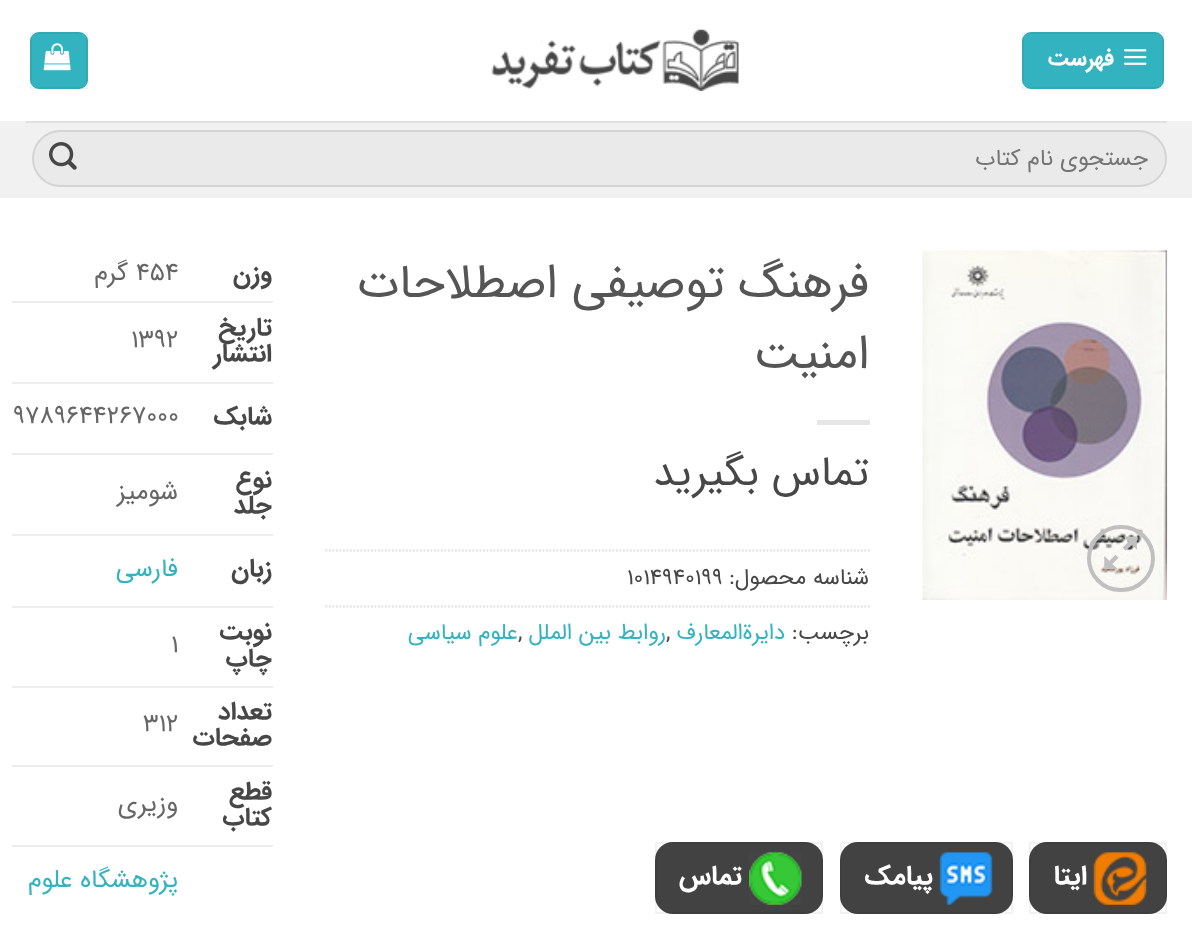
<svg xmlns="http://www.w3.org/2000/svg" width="1192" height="932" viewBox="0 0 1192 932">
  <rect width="100%" height="100%" fill="#fff"/>
  <rect x="1022" y="32" width="142" height="57" rx="9" fill="#33b3bf"/>
  <path d="M1023 33h140v55H1023z" fill="none" stroke="#0000000d" stroke-width="2"/>
  <image x="1124" y="49" width="23" height="16" href="img/1.png"/>
  <image x="491" y="29" width="248" height="62" href="img/2.png"/>
  <rect x="30" y="32" width="58" height="57" rx="9" fill="#33b3bf"/>
  <path d="M31 33h56v55H31z" fill="none" stroke="#0000000d" stroke-width="2"/>
  <image x="43" y="43" width="28" height="28" href="img/3.png"/>
  <path d="M0 121h1192v77H0z" fill="#f1f1f1"/>
  <path d="M26 121h1141v2H26z" fill="#e0e0e0"/>
  <rect x="32" y="130" width="1135" height="57" rx="28.5" fill="#eaeaea"/>
  <rect x="33" y="131" width="1133" height="55" rx="27.5" fill="none" stroke="#00000017" stroke-width="2"/>
  <image x="49" y="142" width="28" height="28" href="img/4.png"/>
  <image x="922" y="250" width="246" height="350" href="img/5.png"/>
  <rect x="1089" y="527" width="64" height="63" rx="31.5" fill="none" stroke="#c0c0c0" stroke-width="4"/>
  <image x="1104" y="536" width="33" height="34" href="img/6.png"/>
  <path d="M817 420h53v5H817z" fill="#e6e6e6"/>
  <path d="M325.5 550.5H870" fill="none" stroke="#ddd" stroke-width="1.8" stroke-dasharray="1.75 1.75"/>
  <path d="M325.5 606.5H870" fill="none" stroke="#ddd" stroke-width="1.8" stroke-dasharray="1.75 1.75"/>
  <path d="M12 301h261v2H12z" fill="#ececec"/>
  <path d="M12 382h261v2H12z" fill="#ececec"/>
  <path d="M12 453h261v2H12z" fill="#ececec"/>
  <path d="M12 534h261v2H12z" fill="#ececec"/>
  <path d="M12 606h261v2H12z" fill="#ececec"/>
  <path d="M12 686h261v2H12z" fill="#ececec"/>
  <path d="M12 765h261v2H12z" fill="#ececec"/>
  <path d="M12 845h261v2H12z" fill="#ececec"/>
  <rect x="1029" y="842" width="138" height="72" rx="18" fill="#424242"/>
  <path d="M1030 843h136v70H1030z" fill="none" stroke="#0000000d" stroke-width="2"/>
  <image x="1093" y="851" width="54" height="54" href="img/7.png"/>
  <rect x="840" y="842" width="173" height="72" rx="18" fill="#424242"/>
  <path d="M841 843h171v70H841z" fill="none" stroke="#0000000d" stroke-width="2"/>
  <image x="939" y="851" width="54" height="54" href="img/8.png"/>
  <rect x="655" y="842" width="168" height="72" rx="18" fill="#424242"/>
  <path d="M656 843h166v70H656z" fill="none" stroke="#0000000d" stroke-width="2"/>
  <image x="749" y="851" width="53" height="54" href="img/9.png"/>
  <text x="1114" y="65" font-family="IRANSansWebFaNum" font-size="22.5" font-weight="bold" direction="rtl" fill="#fff">فهرست</text>
  <text x="1148" y="165" font-family="IRANSansWebFaNum" font-size="23" direction="rtl" fill="#757575">جستجوی نام کتاب</text>
  <g font-family="IRANSansWebFaNum" font-size="47.6" direction="rtl" fill="#555">
    <text x="869" y="297">فرهنگ توصیفی اصطلاحات</text>
    <text x="869" y="368">امنیت</text>
  </g>
  <text x="869" y="485" font-family="IRANSansWebFaNum" font-size="42" direction="rtl" fill="#474747">تماس بگیرید</text>
  <text x="869" y="584" font-family="IRANSansWebFaNum" font-size="22.5" direction="rtl" fill="#474747">شناسه محصول:</text>
  <text x="627" y="584" font-family="IRANSansWebFaNum" font-size="22.5" fill="#474747">1014940199</text>
  <text x="869" y="639" font-family="IRANSansWebFaNum" font-size="22.5" direction="rtl" fill="#474747">برچسب:</text>
  <text x="785" y="639" font-family="IRANSansWebFaNum" font-size="22.5" direction="rtl" fill="#33b3bf">دایرةالمعارف</text>
  <text x="666" y="639" font-family="IRANSansWebFaNum" font-size="22.5" fill="#474747">,</text>
  <text x="666" y="639" font-family="IRANSansWebFaNum" font-size="22.5" direction="rtl" fill="#33b3bf">روابط بین الملل</text>
  <text x="518" y="639" font-family="IRANSansWebFaNum" font-size="22.5" fill="#474747">,</text>
  <text x="518" y="639" font-family="IRANSansWebFaNum" font-size="22.5" direction="rtl" fill="#33b3bf">علوم سياسي</text>
  <text x="272" y="281" font-family="IRANSansWebFaNum" font-size="25.25" font-weight="bold" direction="rtl" fill="#474747">وزن</text>
  <text x="136" y="280" font-family="IRANSansWebFaNum" font-size="25.25" fill="#666">454</text>
  <text x="128" y="280" font-family="IRANSansWebFaNum" font-size="25.25" direction="rtl" fill="#666">گرم</text>
  <g font-family="IRANSansWebFaNum" font-size="25.25" font-weight="bold" direction="rtl" fill="#474747">
    <text x="272" y="335">تاریخ</text>
    <text x="272" y="361">انتشار</text>
  </g>
  <text x="131" y="347" font-family="IRANSansWebFaNum" font-size="25.25" fill="#666">1392</text>
  <text x="272" y="424" font-family="IRANSansWebFaNum" font-size="25.25" font-weight="bold" direction="rtl" fill="#474747">شابک</text>
  <text x="13" y="423" font-family="IRANSansWebFaNum" font-size="25.25" fill="#666">9789644267000</text>
  <g font-family="IRANSansWebFaNum" font-size="25.25" font-weight="bold" direction="rtl" fill="#474747">
    <text x="272" y="487">نوع</text>
    <text x="272" y="513">جلد</text>
  </g>
  <text x="178" y="499" font-family="IRANSansWebFaNum" font-size="25.25" direction="rtl" fill="#666">شومیز</text>
  <text x="272" y="576" font-family="IRANSansWebFaNum" font-size="25.25" font-weight="bold" direction="rtl" fill="#474747">زبان</text>
  <text x="178" y="576" font-family="IRANSansWebFaNum" font-size="25.25" direction="rtl" fill="#33b3bf">فارسی</text>
  <g font-family="IRANSansWebFaNum" font-size="25.25" font-weight="bold" direction="rtl" fill="#474747">
    <text x="272" y="639">نوبت</text>
    <text x="272" y="666">چاپ</text>
  </g>
  <text x="171" y="652" font-family="IRANSansWebFaNum" font-size="25.25" fill="#666">1</text>
  <g font-family="IRANSansWebFaNum" font-size="25.25" font-weight="bold" direction="rtl" fill="#474747">
    <text x="272" y="719">تعداد</text>
    <text x="272" y="745">صفحات</text>
  </g>
  <text x="143" y="731" font-family="IRANSansWebFaNum" font-size="25.25" fill="#666">312</text>
  <g font-family="IRANSansWebFaNum" font-size="25.25" font-weight="bold" direction="rtl" fill="#474747">
    <text x="272" y="799">قطع</text>
    <text x="272" y="825">کتاب</text>
  </g>
  <text x="178" y="811" font-family="IRANSansWebFaNum" font-size="25.25" direction="rtl" fill="#666">وزیری</text>
  <text x="178" y="887" font-family="IRANSansWebFaNum" font-size="25.25" direction="rtl" fill="#33b3bf">پژوهشگاه علوم</text>
  <g font-family="IRANSansWebFaNum" font-size="27" font-weight="bold" letter-spacing="1" direction="rtl" fill="#fff">
    <text x="1087" y="884">ایتا</text>
    <text x="933" y="884">پیامک</text>
    <text x="742" y="884">تماس</text>
  </g>
</svg>
